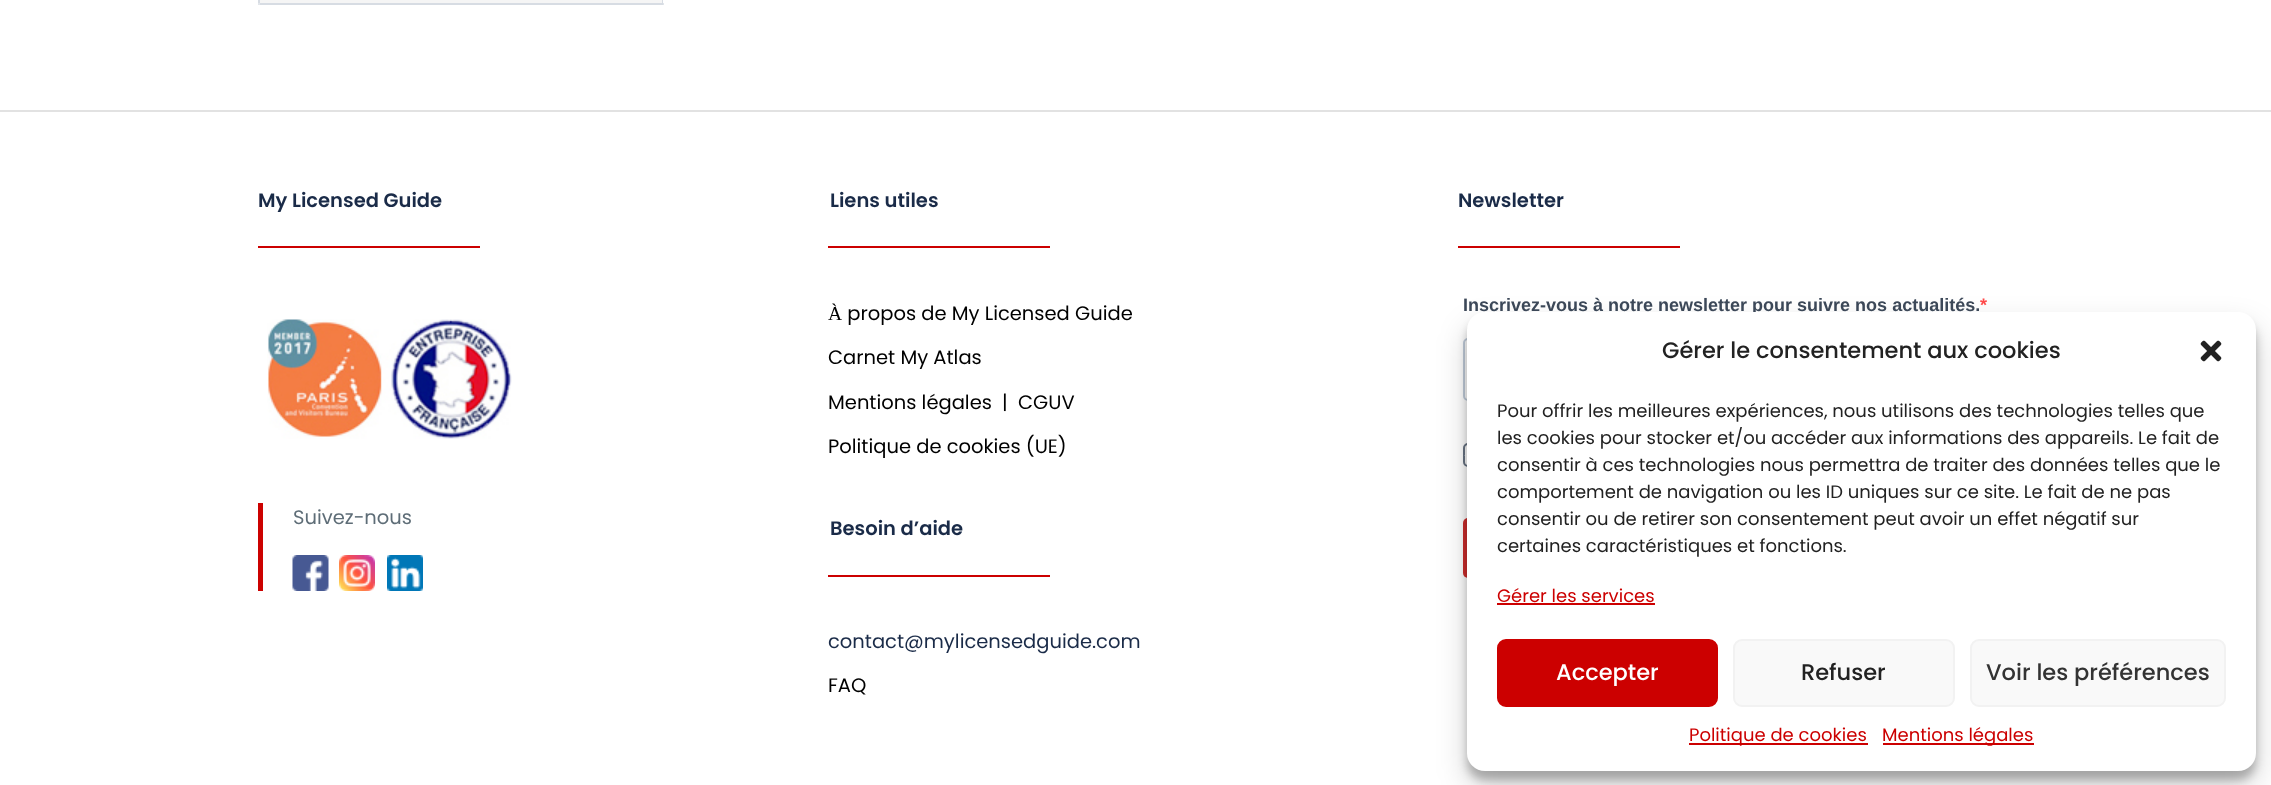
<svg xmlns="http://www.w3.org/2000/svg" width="2271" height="785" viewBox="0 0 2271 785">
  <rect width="100%" height="100%" fill="#fff"/>
  <path d="M258 0h405v3H258z" fill="#f5f5f5"/>
  <path d="M262-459H658C661-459 663-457 663-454V3H258V-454C258-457 260-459 262-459ZM262-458H658C660-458 662-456 662-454V3H260V-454C260-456 261-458 262-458Z" fill="#d7dce3" fill-rule="evenodd"/>
  <circle cx="663" cy="4" r="1" fill="#d7dce3"/>
  <path d="M260 3h403v2H260z" fill="#d7dce3"/>
  <circle cx="259" cy="4" r="1" fill="#d7dce3"/>
  <path d="M0 110h2271v2H0z" fill="#e2e2e2"/>
  <path d="M258 246h222v2H258z" fill="#c00"/>
  <image x="267" y="319" width="245" height="120" href="img/1.png"/>
  <path d="M258 503h5v88H258z" fill="#cc0100"/>
  <image x="292" y="555" width="37" height="36" href="img/2.png"/>
  <image x="339" y="555" width="36" height="36" href="img/3.png"/>
  <image x="387" y="555" width="36" height="36" href="img/4.png"/>
  <path d="M828 246h222v2H828z" fill="#c00"/>
  <path d="M828 575h222v2H828z" fill="#c00"/>
  <path d="M1458 246h222v2H1458z" fill="#c00"/>
  <rect x="1464" y="339" width="544" height="61" rx="4" fill="none" stroke="#c0ccda" stroke-width="2"/>
  <rect x="1464" y="444" width="22" height="22" rx="4" fill="none" stroke="#687484" stroke-width="2"/>
  <path d="M1467 453.5L1474.5 460.5L1472 463L1464.5 455.5Z" fill="#fff"/>
  <rect x="1463" y="518" width="156" height="60" rx="5" fill="#ce2d2c"/>
  <rect x="1467" y="321" width="789" height="459" rx="18" fill="#0000003b" filter="blur(4.5px)"/>
  <rect x="1467" y="327" width="789" height="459" rx="18" fill="#00000030" filter="blur(15px)"/>
  <text x="258" y="207" font-family="Poppins" font-size="19.5" font-weight="600" fill="#1a2b48">My Licensed Guide</text>
  <text x="293" y="524" font-family="Poppins" font-size="19.5" fill="#5e6d77">Suivez-nous</text>
  <text x="830" y="207" font-family="Poppins" font-size="19.5" font-weight="600" fill="#1a2b48">Liens utiles</text>
  <g font-family="Poppins" font-size="19.5" fill="#000">
    <text x="828" y="320">À propos de My Licensed Guide</text>
    <text x="828" y="364">Carnet My Atlas</text>
    <text x="828" y="409">Mentions légales</text>
    <text x="1002" y="409">|</text>
    <text x="1018" y="409">CGUV</text>
    <text x="828" y="453">Politique de cookies (UE)</text>
  </g>
  <text x="830" y="535" font-family="Poppins" font-size="19.5" font-weight="600" fill="#1a2b48">Besoin d’aide</text>
  <text x="828" y="648" font-family="Poppins" font-size="19.5" fill="#1a2b48">contact@mylicensedguide.com</text>
  <text x="828" y="692" font-family="Poppins" font-size="19.5" fill="#000">FAQ</text>
  <text x="1458" y="207" font-family="Poppins" font-size="19.5" font-weight="600" fill="#1a2b48">Newsletter</text>
  <text x="1463" y="311" font-family="Liberation Sans" font-size="18" font-weight="bold" fill="#3c4858">Inscrivez-vous à notre newsletter pour suivre nos actualités.</text>
  <text x="1980" y="311" font-family="Liberation Sans" font-size="18" font-weight="bold" fill="#ff4949">*</text>
  <rect x="1467" y="312" width="789" height="459" rx="18" fill="#fff"/>
  <text x="1662" y="358" font-family="Poppins" font-size="22.5" font-weight="500" fill="#222">Gérer le consentement aux cookies</text>
  <image x="2200" y="340" width="22" height="22" href="img/5.png"/>
  <g font-family="Poppins" font-size="18" fill="#222">
    <text x="1497" y="417">Pour offrir les meilleures expériences, nous utilisons des technologies telles que</text>
    <text x="1497" y="444">les cookies pour stocker et/ou accéder aux informations des appareils. Le fait de</text>
    <text x="1497" y="471">consentir à ces technologies nous permettra de traiter des données telles que le</text>
    <text x="1497" y="498">comportement de navigation ou les ID uniques sur ce site. Le fait de ne pas</text>
    <text x="1497" y="525">consentir ou de retirer son consentement peut avoir un effet négatif sur</text>
    <text x="1497" y="552">certaines caractéristiques et fonctions.</text>
  </g>
  <text x="1497" y="602" font-family="Poppins" font-size="18" fill="#c00">Gérer les services</text>
  <path d="M1497 603h158v2H1497z" fill="#c00"/>
  <rect x="1498" y="640" width="219" height="66" rx="8" fill="#c00" stroke="#c00" stroke-width="2"/>
  <text x="1556" y="680" font-family="Poppins" font-size="22.5" font-weight="500" fill="#fff">Accepter</text>
  <rect x="1734" y="640" width="220" height="66" rx="8" fill="#f9f9f9" stroke="#f2f2f2" stroke-width="2"/>
  <text x="1801" y="680" font-family="Poppins" font-size="22.5" font-weight="500" fill="#222">Refuser</text>
  <rect x="1971" y="640" width="254" height="66" rx="8" fill="#f9f9f9" stroke="#f2f2f2" stroke-width="2"/>
  <text x="1986" y="680" font-family="Poppins" font-size="22.5" font-weight="500" fill="#333">Voir les préférences</text>
  <path d="M1689 743h179v2H1689z" fill="#c00"/>
  <text x="1689" y="741" font-family="Poppins" font-size="18" fill="#c00">Politique de cookies</text>
  <path d="M1883 743h151v2H1883z" fill="#c00"/>
  <text x="1882" y="741" font-family="Poppins" font-size="18" fill="#c00">Mentions légales</text>
</svg>
